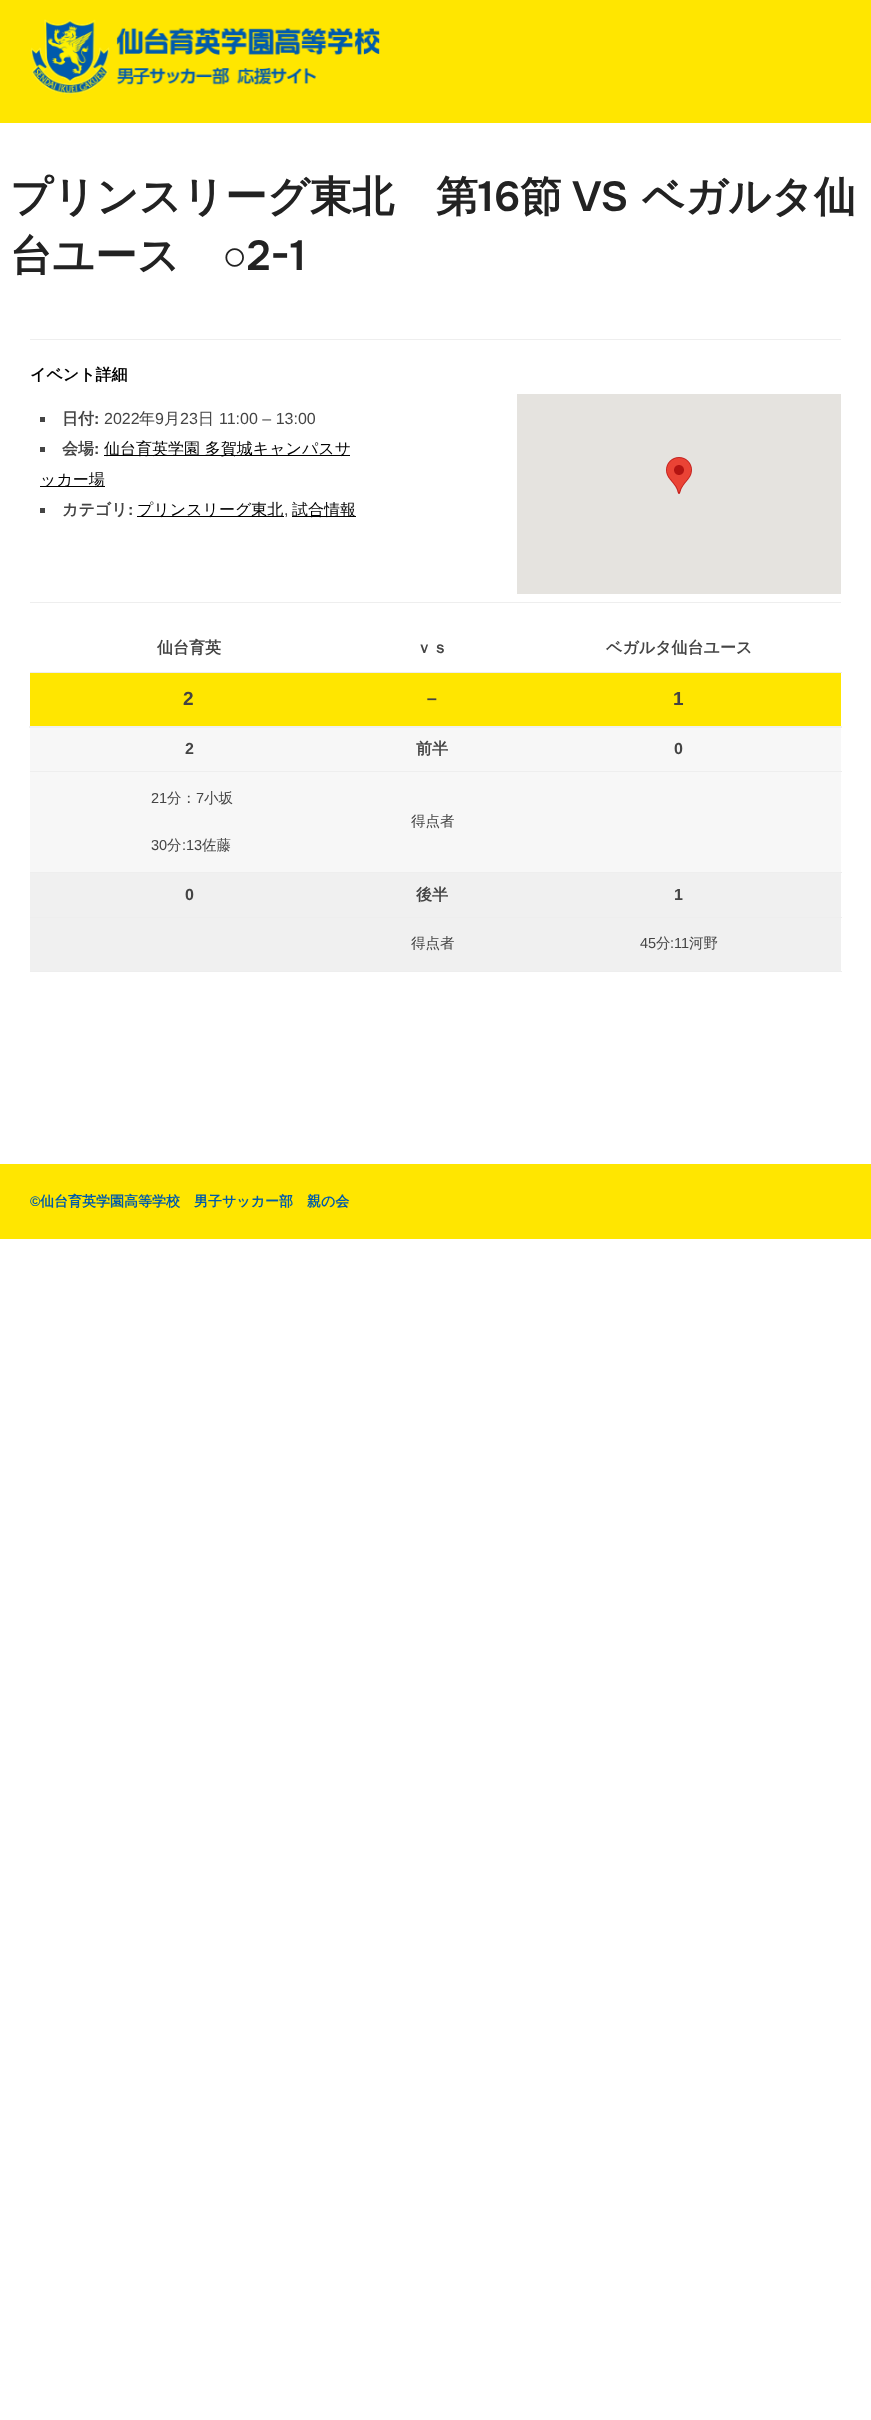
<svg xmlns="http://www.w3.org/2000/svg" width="871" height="2420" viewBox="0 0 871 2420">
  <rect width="100%" height="100%" fill="#fff"/>
  <path d="M0 0h871v123H0z" fill="#ffe600"/>
  <image x="31" y="19" width="349" height="75" href="img/1.png"/>
  <path d="M30 339h811v1H30z" fill="#eee"/>
  <path d="M40 417h5v5H40z" fill="#444"/>
  <path d="M40 447h5v5H40z" fill="#444"/>
  <path d="M104 455h246v1H104z" fill="#000"/>
  <path d="M40 486h65v1H40z" fill="#000"/>
  <path d="M40 508h5v5H40z" fill="#444"/>
  <path d="M137 516h147v1H137z" fill="#000"/>
  <path d="M292 516h64v1H292z" fill="#000"/>
  <path d="M517 394h324v200H517z" fill="#e5e3df"/>
  <image x="666" y="457" width="26" height="37" href="img/2.png"/>
  <path d="M30 602h811v1H30z" fill="#eee"/>
  <path d="M30 672h812v1H30z" fill="#eee"/>
  <path d="M30 673h811v53H30z" fill="#ffe600"/>
  <path d="M29 726h813v2H29z" fill="#f0f0f0"/>
  <path d="M30 728h811v43H30z" fill="#f7f7f7"/>
  <path d="M30 771h812v1H30z" fill="#eee"/>
  <path d="M30 772h811v100H30z" fill="#f7f7f7"/>
  <path d="M30 872h812v1H30z" fill="#eee"/>
  <path d="M30 873h811v44H30z" fill="#f0f0f0"/>
  <path d="M30 917h812v1H30z" fill="#eee"/>
  <path d="M30 918h811v53H30z" fill="#f0f0f0"/>
  <path d="M30 971h812v1H30z" fill="#eee"/>
  <path d="M0 1164h871v75H0z" fill="#ffe600"/>
  <text x="10" y="211" font-family="WenQuanYi Zen Hei" font-size="42" font-weight="bold" fill="#222">プリンスリーグ東北　第</text>
  <text x="478" y="211" font-family="Onest" font-size="42" font-weight="600" fill="#222">16</text>
  <text x="520" y="211" font-family="WenQuanYi Zen Hei" font-size="42" font-weight="bold" fill="#222">節</text>
  <text x="572" y="211" font-family="Onest" font-size="42" font-weight="600" fill="#222">VS</text>
  <g font-family="WenQuanYi Zen Hei" font-size="42" font-weight="bold" fill="#222">
    <text x="642" y="211">ベガルタ仙</text>
    <text x="10" y="270">台ユース</text>
  </g>
  <text x="222" y="270" font-family="Liberation Sans" font-size="42" font-weight="bold" fill="#222">○</text>
  <text x="247" y="270" font-family="Onest" font-size="42" font-weight="600" fill="#222">2-1</text>
  <text x="30" y="380" font-family="WenQuanYi Zen Hei" font-size="16" font-weight="bold" fill="#000">イベント詳細</text>
  <text x="62" y="424" font-family="WenQuanYi Zen Hei" font-size="16" font-weight="bold" fill="#444">日付</text>
  <text x="94" y="424" font-family="Liberation Sans" font-size="16" font-weight="bold" fill="#444">:</text>
  <text x="104" y="424" font-family="Liberation Sans" font-size="16" fill="#444">2022</text>
  <text x="139" y="424" font-family="WenQuanYi Zen Hei" font-size="16" font-weight="500" fill="#444">年</text>
  <text x="155" y="424" font-family="Liberation Sans" font-size="16" fill="#444">9</text>
  <text x="164" y="424" font-family="WenQuanYi Zen Hei" font-size="16" font-weight="500" fill="#444">月</text>
  <text x="180" y="424" font-family="Liberation Sans" font-size="16" fill="#444">23</text>
  <text x="198" y="424" font-family="WenQuanYi Zen Hei" font-size="16" font-weight="500" fill="#444">日</text>
  <text x="219" y="424" font-family="Liberation Sans" font-size="16" fill="#444">11:00 – 13:00</text>
  <text x="62" y="454" font-family="WenQuanYi Zen Hei" font-size="16" font-weight="bold" fill="#444">会場</text>
  <text x="94" y="454" font-family="Liberation Sans" font-size="16" font-weight="bold" fill="#444">:</text>
  <g font-family="WenQuanYi Zen Hei" font-size="16" font-weight="500" fill="#000">
    <text x="104" y="454">仙台育英学園 多賀城キャンパスサ</text>
    <text x="40" y="485">ッカー場</text>
  </g>
  <text x="62" y="515" font-family="WenQuanYi Zen Hei" font-size="16" font-weight="bold" fill="#444">カテゴリ</text>
  <text x="128" y="515" font-family="Liberation Sans" font-size="16" font-weight="bold" fill="#444">:</text>
  <g font-family="WenQuanYi Zen Hei" font-size="16" font-weight="500" fill="#000">
    <text x="137" y="515">プリンスリーグ東北</text>
    <text x="292" y="515">試合情報</text>
  </g>
  <text x="284" y="515" font-family="Liberation Sans" font-size="16" fill="#444">,</text>
  <g font-family="WenQuanYi Zen Hei" font-size="16" font-weight="bold" fill="#444">
    <text x="157" y="653">仙台育英</text>
    <text x="416" y="653">ｖｓ</text>
    <text x="606" y="653">ベガルタ仙台ユース</text>
  </g>
  <text x="183" y="705" font-family="Liberation Sans" font-size="19" font-weight="bold" fill="#444">2</text>
  <text x="422" y="705" font-family="WenQuanYi Zen Hei" font-size="19" font-weight="bold" fill="#444">－</text>
  <text x="673" y="705" font-family="Liberation Sans" font-size="19" font-weight="bold" fill="#444">1</text>
  <text x="185" y="754" font-family="Liberation Sans" font-size="16" font-weight="bold" fill="#444">2</text>
  <text x="416" y="754" font-family="WenQuanYi Zen Hei" font-size="16" font-weight="bold" fill="#444">前半</text>
  <text x="674" y="754" font-family="Liberation Sans" font-size="16" font-weight="bold" fill="#444">0</text>
  <text x="151" y="803" font-family="Liberation Sans" font-size="14.5" fill="#444">21</text>
  <text x="167" y="803" font-family="WenQuanYi Zen Hei" font-size="14.5" font-weight="500" fill="#444">分：</text>
  <text x="196" y="803" font-family="Liberation Sans" font-size="14.5" fill="#444">7</text>
  <text x="204" y="803" font-family="WenQuanYi Zen Hei" font-size="14.5" font-weight="500" fill="#444">小坂</text>
  <text x="151" y="850" font-family="Liberation Sans" font-size="14.5" fill="#444">30</text>
  <text x="167" y="850" font-family="WenQuanYi Zen Hei" font-size="14.5" font-weight="500" fill="#444">分</text>
  <text x="182" y="850" font-family="Liberation Sans" font-size="14.5" fill="#444">:13</text>
  <g font-family="WenQuanYi Zen Hei" font-size="14.5" font-weight="500" fill="#444">
    <text x="202" y="850">佐藤</text>
    <text x="411" y="826">得点者</text>
  </g>
  <text x="185" y="900" font-family="Liberation Sans" font-size="16" font-weight="bold" fill="#444">0</text>
  <text x="416" y="900" font-family="WenQuanYi Zen Hei" font-size="16" font-weight="bold" fill="#444">後半</text>
  <text x="674" y="900" font-family="Liberation Sans" font-size="16" font-weight="bold" fill="#444">1</text>
  <text x="411" y="948" font-family="WenQuanYi Zen Hei" font-size="14.5" font-weight="500" fill="#444">得点者</text>
  <text x="640" y="948" font-family="Liberation Sans" font-size="14.5" fill="#444">45</text>
  <text x="656" y="948" font-family="WenQuanYi Zen Hei" font-size="14.5" font-weight="500" fill="#444">分</text>
  <text x="670" y="948" font-family="Liberation Sans" font-size="14.5" fill="#444">:11</text>
  <text x="689" y="948" font-family="WenQuanYi Zen Hei" font-size="14.5" font-weight="500" fill="#444">河野</text>
  <text x="30" y="1206" font-family="Liberation Sans" font-size="14" font-weight="bold" fill="#005ba9">©</text>
  <text x="40" y="1206" font-family="WenQuanYi Zen Hei" font-size="14" font-weight="bold" fill="#005ba9">仙台育英学園高等学校　男子サッカー部　親の会</text>
</svg>
